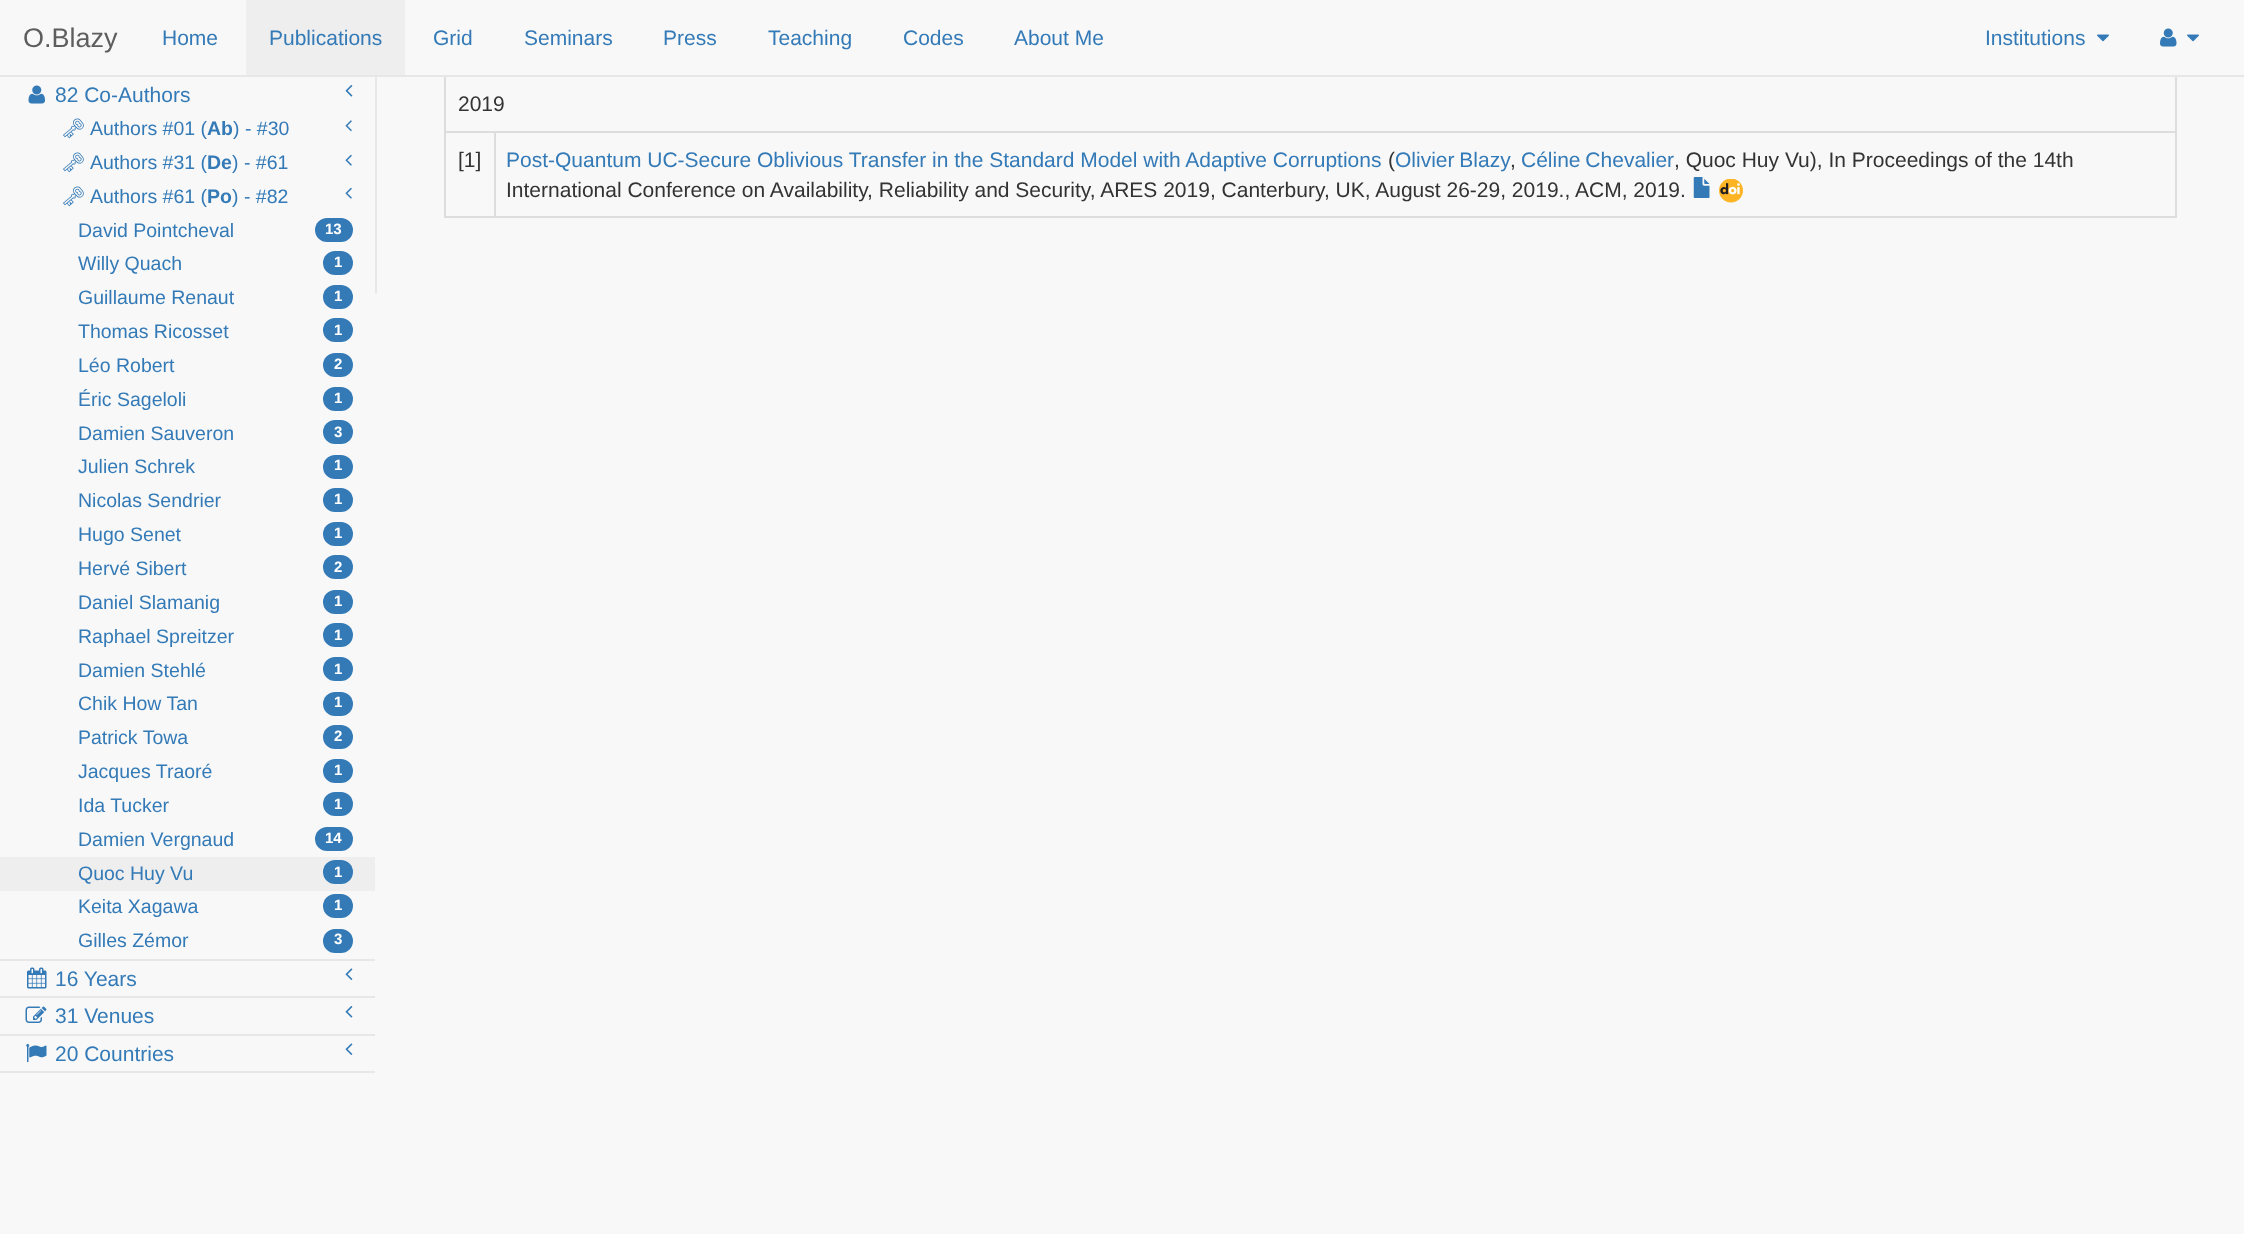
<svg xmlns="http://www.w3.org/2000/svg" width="2244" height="1234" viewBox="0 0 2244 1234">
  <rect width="100%" height="100%" fill="#f8f8f8"/>
  <path d="M2175 75h2v143H2175z" fill="#ddd"/>
  <path d="M444 216h1733v2H444z" fill="#ddd"/>
  <path d="M444 75h2v143H444z" fill="#ddd"/>
  <path d="M0 75h2244v2H0z" fill="#e7e7e7"/>
  <path d="M246 0h159v75H246z" fill="#eee"/>
  <image x="2097" y="34" width="12" height="8" href="img/1.png"/>
  <image x="2160" y="28" width="17" height="19" href="img/2.png"/>
  <image x="2187" y="34" width="12" height="8" href="img/1.png"/>
  <path d="M0 959h375v2H0z" fill="#e7e7e7"/>
  <image x="28" y="85" width="17" height="19" href="img/3.png"/>
  <image x="345" y="85" width="8" height="12" href="img/4.png"/>
  <image x="345" y="120" width="7" height="12" href="img/5.png"/>
  <image x="345" y="154" width="7" height="12" href="img/6.png"/>
  <image x="345" y="187" width="7" height="12" href="img/6.png"/>
  <rect x="315" y="218" width="38" height="24" rx="12" fill="#337ab7"/>
  <rect x="323" y="251" width="30" height="24" rx="12" fill="#337ab7"/>
  <rect x="323" y="285" width="30" height="24" rx="12" fill="#337ab7"/>
  <rect x="323" y="318" width="30" height="24" rx="12" fill="#337ab7"/>
  <rect x="323" y="353" width="30" height="24" rx="12" fill="#337ab7"/>
  <rect x="323" y="387" width="30" height="24" rx="12" fill="#337ab7"/>
  <rect x="323" y="420" width="30" height="24" rx="12" fill="#337ab7"/>
  <rect x="323" y="455" width="30" height="24" rx="12" fill="#337ab7"/>
  <rect x="323" y="488" width="30" height="24" rx="12" fill="#337ab7"/>
  <rect x="323" y="522" width="30" height="24" rx="12" fill="#337ab7"/>
  <rect x="323" y="555" width="30" height="24" rx="12" fill="#337ab7"/>
  <rect x="323" y="590" width="30" height="24" rx="12" fill="#337ab7"/>
  <rect x="323" y="623" width="30" height="24" rx="12" fill="#337ab7"/>
  <rect x="323" y="657" width="30" height="24" rx="12" fill="#337ab7"/>
  <rect x="323" y="692" width="30" height="24" rx="12" fill="#337ab7"/>
  <rect x="323" y="725" width="30" height="24" rx="12" fill="#337ab7"/>
  <rect x="323" y="759" width="30" height="24" rx="12" fill="#337ab7"/>
  <rect x="323" y="792" width="30" height="24" rx="12" fill="#337ab7"/>
  <rect x="315" y="827" width="38" height="24" rx="12" fill="#337ab7"/>
  <path d="M0 857h375v34H0z" fill="#eee"/>
  <rect x="323" y="860" width="30" height="24" rx="12" fill="#337ab7"/>
  <rect x="323" y="894" width="30" height="24" rx="12" fill="#337ab7"/>
  <rect x="323" y="929" width="30" height="24" rx="12" fill="#337ab7"/>
  <path d="M0 996h375v2H0z" fill="#e7e7e7"/>
  <image x="27" y="967" width="20" height="22" href="img/7.png"/>
  <image x="345" y="968" width="8" height="12" href="img/8.png"/>
  <path d="M0 1034h375v2H0z" fill="#e7e7e7"/>
  <image x="25" y="1006" width="22" height="17" href="img/9.png"/>
  <image x="345" y="1006" width="8" height="12" href="img/4.png"/>
  <path d="M0 1071h375v2H0z" fill="#e7e7e7"/>
  <image x="26" y="1044" width="21" height="18" href="img/10.png"/>
  <image x="345" y="1043" width="8" height="12" href="img/8.png"/>
  <path d="M375 77h2v216H375z" fill="#e7e7e7"/>
  <path d="M494 131h1683v2H494z" fill="#ddd"/>
  <path d="M494 131h2v87H494z" fill="#ddd"/>
  <path d="M444 131h51v2H444z" fill="#ddd"/>
  <image x="1693" y="177" width="17" height="21" href="img/11.png"/>
  <image x="1719" y="179" width="24" height="24" href="img/12.png"/>
  <text x="23" y="47" font-family="Liberation Sans" font-size="27" fill="#5e5e5e">O.Blazy</text>
  <g font-family="Liberation Sans" font-size="21" fill="#337ab7">
    <text x="162" y="45">Home</text>
    <text x="269" y="45">Publications</text>
    <text x="433" y="45">Grid</text>
    <text x="524" y="45">Seminars</text>
    <text x="663" y="45">Press</text>
    <text x="768" y="45">Teaching</text>
    <text x="903" y="45">Codes</text>
    <text x="1014" y="45">About Me</text>
    <text x="1985" y="45">Institutions</text>
    <text x="55" y="102">82 Co-Authors</text>
  </g>
  <text x="61" y="135" font-family="Noto Emoji" font-size="19.5" fill="#337ab7">🗝</text>
  <text x="90" y="135" font-family="Liberation Sans" font-size="19.5" fill="#337ab7">Authors #01 (</text>
  <text x="207" y="135" font-family="Liberation Sans" font-size="19.5" font-weight="bold" fill="#337ab7">Ab</text>
  <text x="233" y="135" font-family="Liberation Sans" font-size="19.5" fill="#337ab7">) - #30</text>
  <text x="61" y="169" font-family="Noto Emoji" font-size="19.5" fill="#337ab7">🗝</text>
  <text x="90" y="169" font-family="Liberation Sans" font-size="19.5" fill="#337ab7">Authors #31 (</text>
  <text x="207" y="169" font-family="Liberation Sans" font-size="19.5" font-weight="bold" fill="#337ab7">De</text>
  <text x="232" y="169" font-family="Liberation Sans" font-size="19.5" fill="#337ab7">) - #61</text>
  <text x="61" y="203" font-family="Noto Emoji" font-size="19.5" fill="#337ab7">🗝</text>
  <text x="90" y="203" font-family="Liberation Sans" font-size="19.5" fill="#337ab7">Authors #61 (</text>
  <text x="207" y="203" font-family="Liberation Sans" font-size="19.5" font-weight="bold" fill="#337ab7">Po</text>
  <g font-family="Liberation Sans" font-size="19.5" fill="#337ab7">
    <text x="232" y="203">) - #82</text>
    <text x="78" y="237">David Pointcheval</text>
  </g>
  <text x="325" y="234" font-family="Liberation Sans" font-size="15" font-weight="bold" fill="#fff">13</text>
  <text x="78" y="270" font-family="Liberation Sans" font-size="19.5" fill="#337ab7">Willy Quach</text>
  <text x="334" y="267" font-family="Liberation Sans" font-size="15" font-weight="bold" fill="#fff">1</text>
  <text x="78" y="304" font-family="Liberation Sans" font-size="19.5" fill="#337ab7">Guillaume Renaut</text>
  <text x="334" y="301" font-family="Liberation Sans" font-size="15" font-weight="bold" fill="#fff">1</text>
  <text x="78" y="338" font-family="Liberation Sans" font-size="19.5" fill="#337ab7">Thomas Ricosset</text>
  <text x="334" y="335" font-family="Liberation Sans" font-size="15" font-weight="bold" fill="#fff">1</text>
  <text x="78" y="372" font-family="Liberation Sans" font-size="19.5" fill="#337ab7">Léo Robert</text>
  <text x="334" y="369" font-family="Liberation Sans" font-size="15" font-weight="bold" fill="#fff">2</text>
  <text x="78" y="406" font-family="Liberation Sans" font-size="19.5" fill="#337ab7">Éric Sageloli</text>
  <text x="334" y="403" font-family="Liberation Sans" font-size="15" font-weight="bold" fill="#fff">1</text>
  <text x="78" y="440" font-family="Liberation Sans" font-size="19.5" fill="#337ab7">Damien Sauveron</text>
  <text x="334" y="437" font-family="Liberation Sans" font-size="15" font-weight="bold" fill="#fff">3</text>
  <text x="78" y="473" font-family="Liberation Sans" font-size="19.5" fill="#337ab7">Julien Schrek</text>
  <text x="334" y="470" font-family="Liberation Sans" font-size="15" font-weight="bold" fill="#fff">1</text>
  <text x="78" y="507" font-family="Liberation Sans" font-size="19.5" fill="#337ab7">Nicolas Sendrier</text>
  <text x="334" y="504" font-family="Liberation Sans" font-size="15" font-weight="bold" fill="#fff">1</text>
  <text x="78" y="541" font-family="Liberation Sans" font-size="19.5" fill="#337ab7">Hugo Senet</text>
  <text x="334" y="538" font-family="Liberation Sans" font-size="15" font-weight="bold" fill="#fff">1</text>
  <text x="78" y="575" font-family="Liberation Sans" font-size="19.5" fill="#337ab7">Hervé Sibert</text>
  <text x="334" y="572" font-family="Liberation Sans" font-size="15" font-weight="bold" fill="#fff">2</text>
  <text x="78" y="609" font-family="Liberation Sans" font-size="19.5" fill="#337ab7">Daniel Slamanig</text>
  <text x="334" y="606" font-family="Liberation Sans" font-size="15" font-weight="bold" fill="#fff">1</text>
  <text x="78" y="643" font-family="Liberation Sans" font-size="19.5" fill="#337ab7">Raphael Spreitzer</text>
  <text x="334" y="640" font-family="Liberation Sans" font-size="15" font-weight="bold" fill="#fff">1</text>
  <text x="78" y="677" font-family="Liberation Sans" font-size="19.5" fill="#337ab7">Damien Stehlé</text>
  <text x="334" y="674" font-family="Liberation Sans" font-size="15" font-weight="bold" fill="#fff">1</text>
  <text x="78" y="710" font-family="Liberation Sans" font-size="19.5" fill="#337ab7">Chik How Tan</text>
  <text x="334" y="707" font-family="Liberation Sans" font-size="15" font-weight="bold" fill="#fff">1</text>
  <text x="78" y="744" font-family="Liberation Sans" font-size="19.5" fill="#337ab7">Patrick Towa</text>
  <text x="334" y="741" font-family="Liberation Sans" font-size="15" font-weight="bold" fill="#fff">2</text>
  <text x="78" y="778" font-family="Liberation Sans" font-size="19.5" fill="#337ab7">Jacques Traoré</text>
  <text x="334" y="775" font-family="Liberation Sans" font-size="15" font-weight="bold" fill="#fff">1</text>
  <text x="78" y="812" font-family="Liberation Sans" font-size="19.5" fill="#337ab7">Ida Tucker</text>
  <text x="334" y="809" font-family="Liberation Sans" font-size="15" font-weight="bold" fill="#fff">1</text>
  <text x="78" y="846" font-family="Liberation Sans" font-size="19.5" fill="#337ab7">Damien Vergnaud</text>
  <text x="325" y="843" font-family="Liberation Sans" font-size="15" font-weight="bold" fill="#fff">14</text>
  <text x="78" y="880" font-family="Liberation Sans" font-size="19.5" fill="#337ab7">Quoc Huy Vu</text>
  <text x="334" y="877" font-family="Liberation Sans" font-size="15" font-weight="bold" fill="#fff">1</text>
  <text x="78" y="913" font-family="Liberation Sans" font-size="19.5" fill="#337ab7">Keita Xagawa</text>
  <text x="334" y="910" font-family="Liberation Sans" font-size="15" font-weight="bold" fill="#fff">1</text>
  <text x="78" y="947" font-family="Liberation Sans" font-size="19.5" fill="#337ab7">Gilles Zémor</text>
  <text x="334" y="944" font-family="Liberation Sans" font-size="15" font-weight="bold" fill="#fff">3</text>
  <g font-family="Liberation Sans" font-size="21" fill="#337ab7">
    <text x="55" y="986">16 Years</text>
    <text x="55" y="1023">31 Venues</text>
    <text x="55" y="1061">20 Countries</text>
  </g>
  <g font-family="Liberation Sans" font-size="21" fill="#333">
    <text x="458" y="111">2019</text>
    <text x="458" y="167">[1]</text>
  </g>
  <text x="506" y="167" font-family="Liberation Sans" font-size="21" fill="#337ab7">Post-Quantum UC-Secure Oblivious Transfer in the Standard Model with Adaptive Corruptions</text>
  <text x="1388" y="167" font-family="Liberation Sans" font-size="21" fill="#333">(</text>
  <text x="1395" y="167" word-spacing="-1" font-family="Liberation Sans" font-size="21" fill="#337ab7">Olivier Blazy</text>
  <text x="1510" y="167" font-family="Liberation Sans" font-size="21" fill="#333">,</text>
  <text x="1521" y="167" word-spacing="-1" font-family="Liberation Sans" font-size="21" fill="#337ab7">Céline Chevalier</text>
  <g font-family="Liberation Sans" font-size="21" fill="#333">
    <text x="1674" y="167">, Quoc Huy Vu), In Proceedings of the 14th</text>
    <text x="506" y="197">International Conference on Availability, Reliability and Security, ARES 2019, Canterbury, UK, August 26-29, 2019.,</text>
    <text x="1575" y="197">ACM, 2019.</text>
  </g>
</svg>
